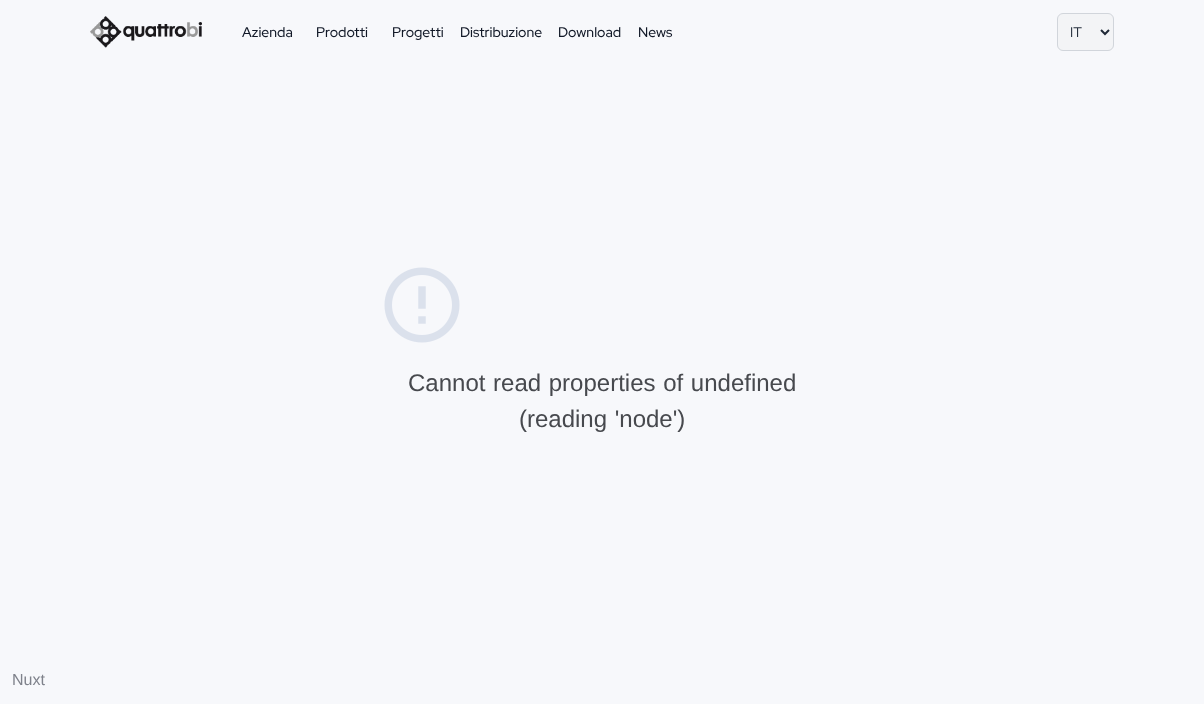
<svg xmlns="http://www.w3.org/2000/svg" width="1204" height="704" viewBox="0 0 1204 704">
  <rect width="100%" height="100%" fill="#f7f8fb"/>
  <image x="90" y="16" width="112" height="32" href="img/1.png"/>
  <rect x="1057.5" y="13.5" width="56" height="37" rx="5.5" fill="#f3f4f6" stroke="#d1d5db"/>
  <path d="M1101 30L1105 34L1109 30" fill="none" stroke="#1f2937" stroke-width="2"/>
  <image x="384" y="267" width="76" height="76" href="img/2.png"/>
  <g font-family="Red Hat Display" font-size="14" font-weight="500" fill="#111827">
    <text x="242" y="37">Azienda</text>
    <text x="316" y="37">Prodotti</text>
    <text x="392" y="37">Progetti</text>
    <text x="460" y="37">Distribuzione</text>
    <text x="558" y="37">Download</text>
    <text x="638" y="37">News</text>
  </g>
  <text x="1070" y="37" font-family="Red Hat Display" font-size="14" fill="#1f2937">IT</text>
  <g font-family="Liberation Sans" font-size="24" fill="#47494e">
    <text x="408" y="391" word-spacing="1">Cannot read properties of undefined</text>
    <text x="519" y="427" word-spacing="1">(reading 'node')</text>
  </g>
  <text x="12" y="685" font-family="Liberation Sans" font-size="16" fill="#7f828b">Nuxt</text>
</svg>
